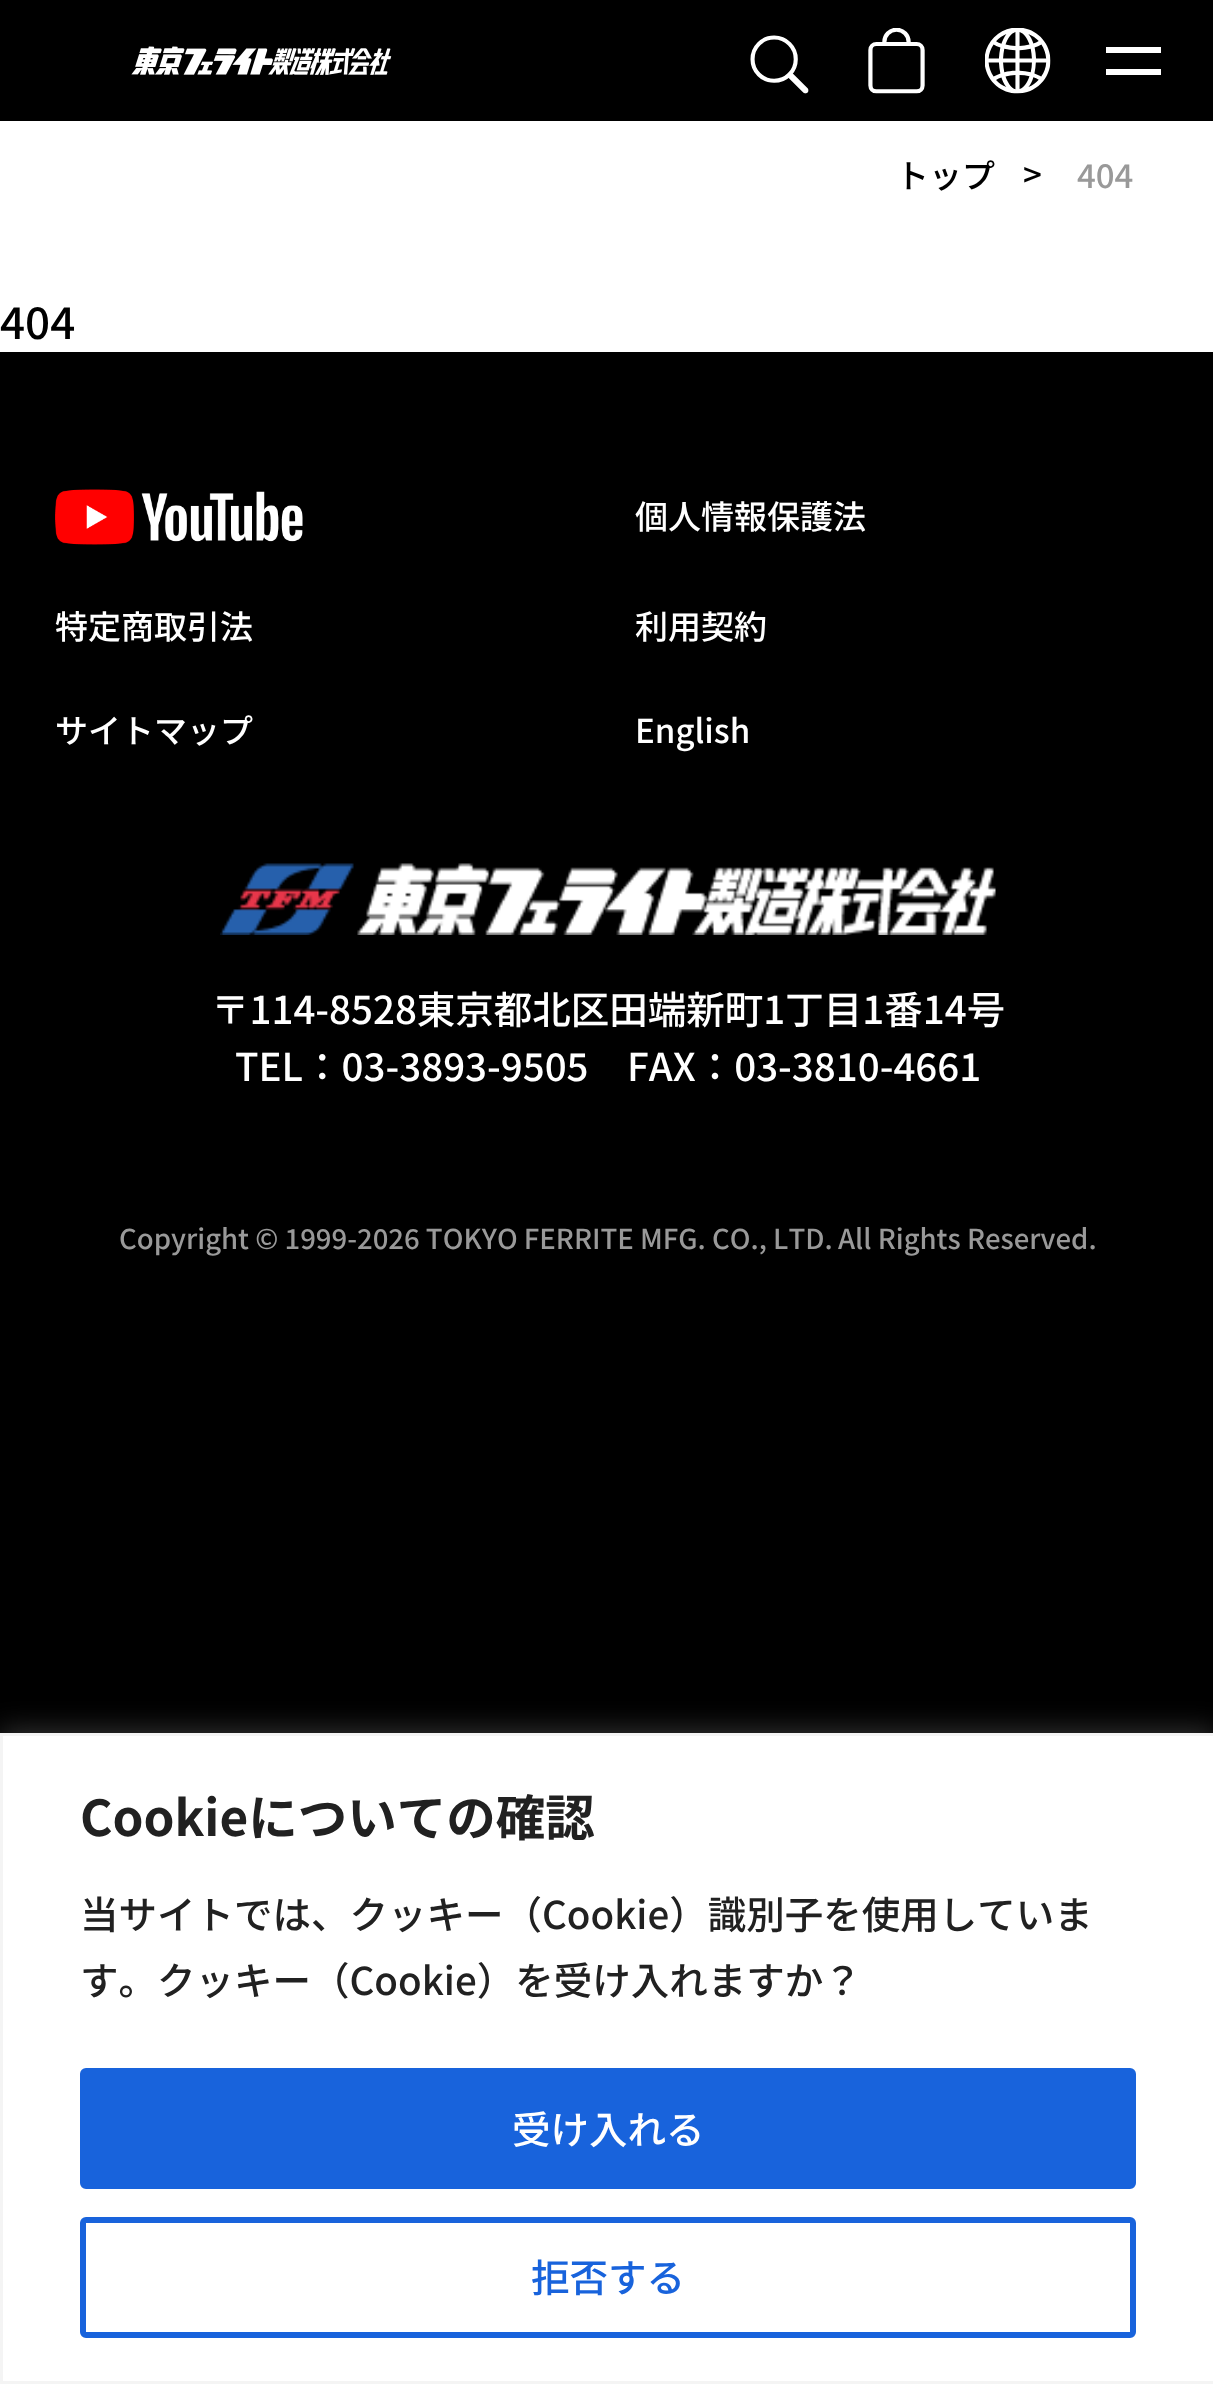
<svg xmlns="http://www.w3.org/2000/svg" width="1213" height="2384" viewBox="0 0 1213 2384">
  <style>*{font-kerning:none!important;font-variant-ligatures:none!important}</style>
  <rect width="100%" height="100%" fill="#000"/>
  <image x="131" y="46" width="261" height="29" href="img/1.png"/>
  <image x="750" y="35" width="59" height="59" href="img/2.png"/>
  <image x="868" y="28" width="57" height="66" href="img/3.png"/>
  <image x="985" y="28" width="66" height="66" href="img/4.png"/>
  <path d="M1106 47h55v6H1106z" fill="#fff"/>
  <path d="M1106 69h55v6H1106z" fill="#fff"/>
  <path d="M0 121h1213v231H0z" fill="#fff"/>
  <image x="55" y="489" width="248" height="56" href="img/5.png"/>
  <image x="220" y="863" width="776" height="72" href="img/6.png"/>
  <path d="M0 1730h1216v652H0z" fill="#acabab4d" filter="blur(14px)"/>
  <path d="M1.5 1734.5h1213v648H1.5z" fill="#fff" stroke="#f4f4f4" stroke-width="3"/>
  <rect x="83" y="2071" width="1050" height="115" rx="3" fill="#1863dc" stroke="#1863dc" stroke-width="6"/>
  <rect x="83" y="2220" width="1050" height="115" rx="3" fill="none" stroke="#1863dc" stroke-width="6"/>
  <g font-family="Noto Sans JP" font-size="33" font-weight="500" fill="#000">
    <text x="896" y="188">トップ</text>
    <text x="1023" y="187">&gt;</text>
  </g>
  <text x="1077" y="188" font-family="Noto Sans JP" font-size="33" font-weight="500" fill="#999">404</text>
  <text x="0" y="339" font-family="Noto Sans JP" font-size="44" font-weight="500" fill="#000">404</text>
  <g font-family="Noto Sans JP" font-size="33" font-weight="500" fill="#fff">
    <text x="635" y="529">個人情報保護法</text>
    <text x="55" y="639">特定商取引法</text>
    <text x="635" y="639">利用契約</text>
    <text x="55" y="743">サイトマップ</text>
    <text x="635" y="743">English</text>
  </g>
  <g font-family="Noto Sans JP" font-size="38.5" font-weight="500" fill="#fff">
    <text x="211" y="1024">〒114-8528東京都北区田端新町1丁目1番14号</text>
    <text x="235" y="1081">TEL：03-3893-9505　FAX：03-3810-4661</text>
  </g>
  <text x="119" y="1249" font-family="Noto Sans JP" font-size="27.5" font-weight="500" fill="#999">Copyright © 1999-2026 TOKYO FERRITE MFG. CO., LTD.</text>
  <text x="838" y="1249" font-family="Noto Sans JP" font-size="27.5" font-weight="500" fill="#999">All Rights Reserved.</text>
  <text x="80" y="1836" font-family="Noto Sans JP" font-size="49.5" font-weight="bold" fill="#212121">Cookieについての確認</text>
  <g font-family="Noto Sans JP" font-size="38.5" font-weight="500" fill="#212121">
    <text x="80" y="1929">当サイトでは、クッキー（Cookie）識別子を使用していま</text>
    <text x="80" y="1995">す。クッキー（Cookie）を受け入れますか？</text>
  </g>
  <text x="512" y="2144" font-family="Noto Sans JP" font-size="38.5" font-weight="500" fill="#fff">受け入れる</text>
  <text x="531" y="2292" font-family="Noto Sans JP" font-size="38.5" font-weight="500" fill="#1863dc">拒否する</text>
</svg>
